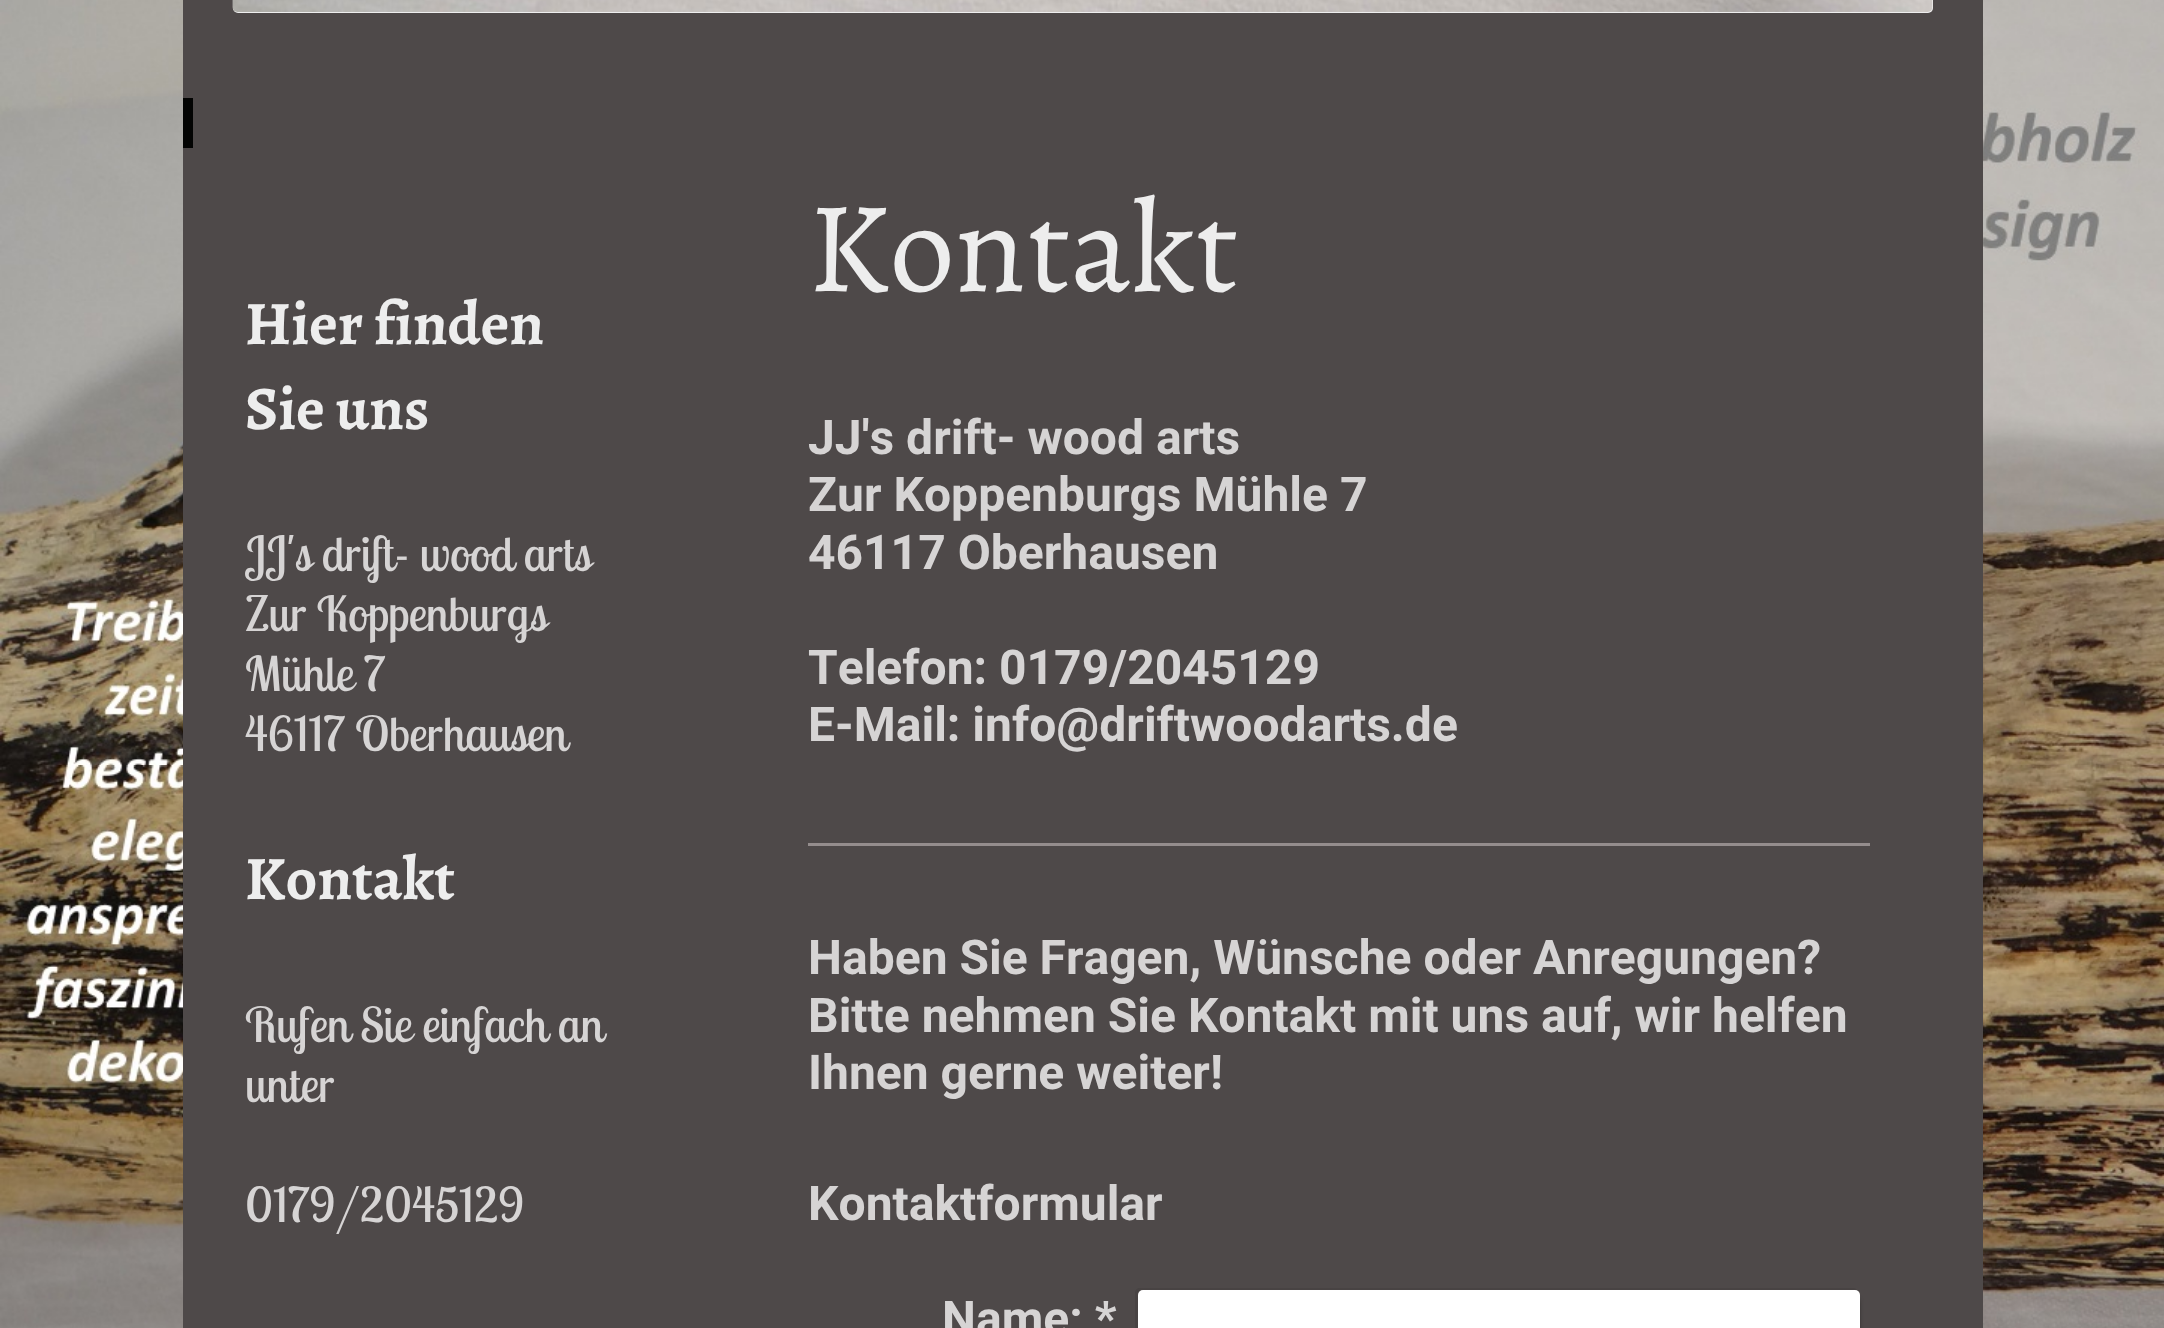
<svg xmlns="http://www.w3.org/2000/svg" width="2164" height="1328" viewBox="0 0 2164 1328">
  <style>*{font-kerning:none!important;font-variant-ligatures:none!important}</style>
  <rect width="100%" height="100%" fill="#fff"/>
  <image x="0" y="0" width="2164" height="1328" href="img/1.png"/>
  <path d="M183 0h1800v1328H183z" fill="#4e4949"/>
  <image x="232" y="0" width="1701" height="11" href="img/3.png"/>
  <rect x="233" y="-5" width="1700" height="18" rx="5" fill="#eee"/>
  <image x="232" y="0" width="1701" height="12" href="img/2.png"/>
  <path d="M183 98h10v50H183z" fill="#030403"/>
  <path d="M808 843h1062v3H808z" fill="#948d8d"/>
  <path d="M1140 1288C1137 1288 1135 1290 1135 1293V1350C1135 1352 1136 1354 1138 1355V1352V1295C1138 1292 1140 1290 1142 1290H1855L1857 1291C1857 1289 1855 1288 1853 1288Z" fill="#484343"/>
  <path d="M1145 1300h713v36H1145z" fill="#000000cc" filter="blur(2.5px)"/>
  <rect x="1138" y="1290" width="722" height="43" rx="5" fill="#fff"/>
  <g font-family="Alegreya" font-size="61.75" font-weight="bold" fill="#ededed">
    <text x="245" y="344">Hier finden</text>
    <text x="245" y="429">Sie uns</text>
  </g>
  <g font-family="Lobster Two" font-size="48" fill="#d6d4d4">
    <text x="245" y="571">JJ's drift- wood arts</text>
    <text x="245" y="631">Zur Koppenburgs</text>
    <text x="245" y="691">Mühle 7</text>
    <text x="245" y="751">46117 Oberhausen</text>
  </g>
  <text x="245" y="899" font-family="Alegreya" font-size="61.75" font-weight="bold" fill="#ededed">Kontakt</text>
  <g font-family="Lobster Two" font-size="48" fill="#d6d4d4">
    <text x="245" y="1042">Rufen Sie einfach an</text>
    <text x="245" y="1102">unter</text>
    <text x="245" y="1222">0179/2045129</text>
  </g>
  <text x="808" y="291" font-family="Alegreya" font-size="130" fill="#ededed">Kontakt</text>
  <g font-family="Roboto" font-size="48" font-weight="bold" fill="#d6d4d4">
    <text x="808" y="454">JJ's drift- wood arts</text>
    <text x="808" y="511">Zur Koppenburgs Mühle</text>
    <text x="1340" y="511">7</text>
    <text x="808" y="569">46117 Oberhausen</text>
    <text x="808" y="684">Telefon: 0179/2045129</text>
    <text x="808" y="741">E-Mail: info@driftwoodarts.de</text>
    <text x="808" y="974">Haben Sie Fragen, Wünsche oder Anregungen?</text>
    <text x="808" y="1032">Bitte nehmen Sie Kontakt mit uns auf, wir helfen</text>
    <text x="808" y="1089">Ihnen gerne weiter!</text>
    <text x="808" y="1220">Kontaktformular</text>
    <text x="942" y="1335">Name: *</text>
  </g>
</svg>
